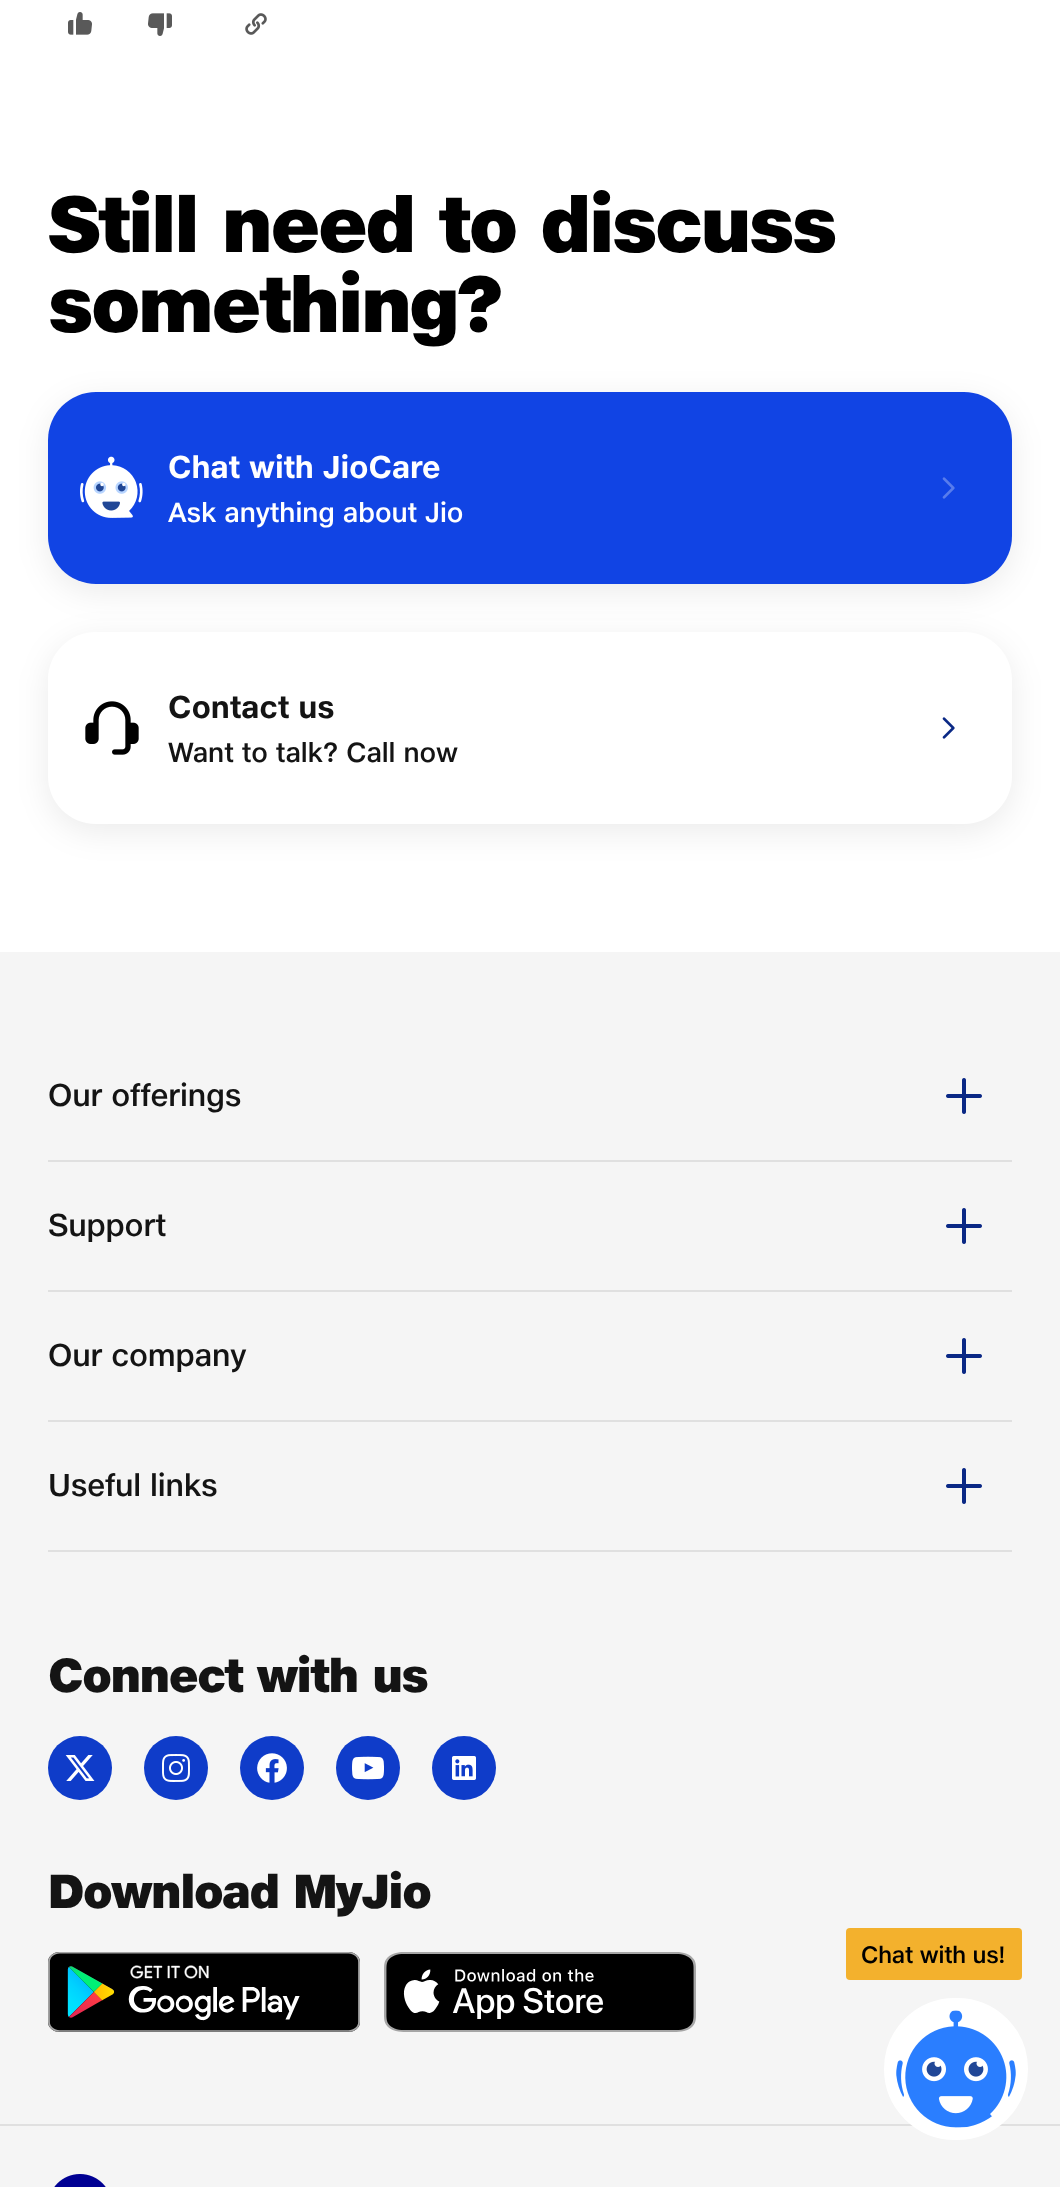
<svg xmlns="http://www.w3.org/2000/svg" width="1060" height="2187" viewBox="0 0 1060 2187">
  <defs>
    <clipPath id="clip1"><path d="M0 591H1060V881H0ZM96 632H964C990.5 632 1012 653.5 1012 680V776C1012 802.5 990.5 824 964 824H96C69.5 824 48 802.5 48 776V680C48 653.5 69.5 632 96 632Z" clip-rule="evenodd"/></clipPath>
  </defs>
  <rect width="100%" height="100%" fill="#fff"/>
  <rect x="48" y="400" width="964" height="192" rx="48" fill="#00000014" filter="blur(16px)"/>
  <rect x="48" y="392" width="964" height="192" rx="48" fill="#1144e4"/>
  <image x="80" y="456" width="63" height="62" href="img/1.png"/>
  <image x="942" y="477" width="13" height="22" href="img/2.png"/>
  <g clip-path="url(#clip1)">
    <rect x="48" y="640" width="964" height="192" rx="48" fill="#00000014" filter="blur(16px)"/>
  </g>
  <image x="85" y="701" width="54" height="54" href="img/3.png"/>
  <image x="942" y="717" width="13" height="22" href="img/4.png"/>
  <image x="68" y="12" width="24" height="23" href="img/5.png"/>
  <image x="148" y="13" width="24" height="23" href="img/6.png"/>
  <image x="245" y="13" width="22" height="22" href="img/7.png"/>
  <path d="M0 952h1060v1235H0z" fill="#f5f5f5"/>
  <rect x="846" y="1928" width="176" height="52" rx="4" fill="#f3b12d"/>
  <path d="M0 2124h1060v2H0z" fill="#e0e0e0"/>
  <rect x="890" y="2004" width="132" height="130" rx="65" fill="#fff" stroke="#fff" stroke-width="12"/>
  <image x="896" y="2010" width="120" height="118" href="img/8.png"/>
  <path d="M48 1160h964v2H48z" fill="#e0e0e0"/>
  <image x="946" y="1078" width="36" height="36" href="img/9.png"/>
  <path d="M48 1290h964v2H48z" fill="#e0e0e0"/>
  <image x="946" y="1208" width="36" height="36" href="img/9.png"/>
  <path d="M48 1420h964v2H48z" fill="#e0e0e0"/>
  <image x="946" y="1338" width="36" height="36" href="img/9.png"/>
  <path d="M48 1550h964v2H48z" fill="#e0e0e0"/>
  <image x="946" y="1468" width="36" height="36" href="img/9.png"/>
  <circle cx="80" cy="1768" r="32" fill="#0f3cc9"/>
  <image x="65" y="1755" width="30" height="26" href="img/10.png"/>
  <circle cx="176" cy="1768" r="32" fill="#0f3cc9"/>
  <image x="162" y="1754" width="28" height="28" href="img/11.png"/>
  <circle cx="272" cy="1768" r="32" fill="#0f3cc9"/>
  <image x="257" y="1753" width="30" height="30" href="img/12.png"/>
  <circle cx="368" cy="1768" r="32" fill="#0f3cc9"/>
  <image x="352" y="1756" width="32" height="24" href="img/13.png"/>
  <circle cx="464" cy="1768" r="32" fill="#0f3cc9"/>
  <image x="452" y="1756" width="24" height="24" href="img/14.png"/>
  <image x="48" y="1952" width="312" height="80" href="img/15.png"/>
  <image x="384" y="1952" width="312" height="80" href="img/16.png"/>
  <image x="54" y="2174" width="52" height="13" href="img/17.png"/>
  <g font-family="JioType" font-size="80" font-weight="900" letter-spacing="-2.4" fill="#000">
    <text x="48" y="252">Still need to discuss</text>
    <text x="48" y="332">something?</text>
  </g>
  <text x="168" y="478" font-family="JioType" font-size="32" font-weight="bold" letter-spacing="-0.2" fill="#fff">Chat with JioCare</text>
  <text x="168" y="522" font-family="JioType" font-size="28" font-weight="500" letter-spacing="-0.1" fill="#fff">Ask anything about Jio</text>
  <text x="168" y="718" font-family="JioType" font-size="32" font-weight="bold" letter-spacing="-0.2" fill="#141414">Contact us</text>
  <text x="168" y="762" font-family="JioType" font-size="28" font-weight="500" letter-spacing="-0.1" fill="#141414">Want to talk? Call now</text>
  <text x="861" y="1963" font-family="JioType" font-size="24" font-weight="500" letter-spacing="-0.2" fill="#000">Chat with us!</text>
  <g font-family="JioType" font-size="32" font-weight="500" letter-spacing="-0.2" fill="#141414">
    <text x="48" y="1106">Our offerings</text>
    <text x="48" y="1236">Support</text>
    <text x="48" y="1366">Our company</text>
    <text x="48" y="1496">Useful links</text>
  </g>
  <g font-family="JioType" font-size="48" font-weight="900" letter-spacing="-1.5" fill="#141414">
    <text x="48" y="1692">Connect with us</text>
    <text x="48" y="1908">Download MyJio</text>
  </g>
</svg>
